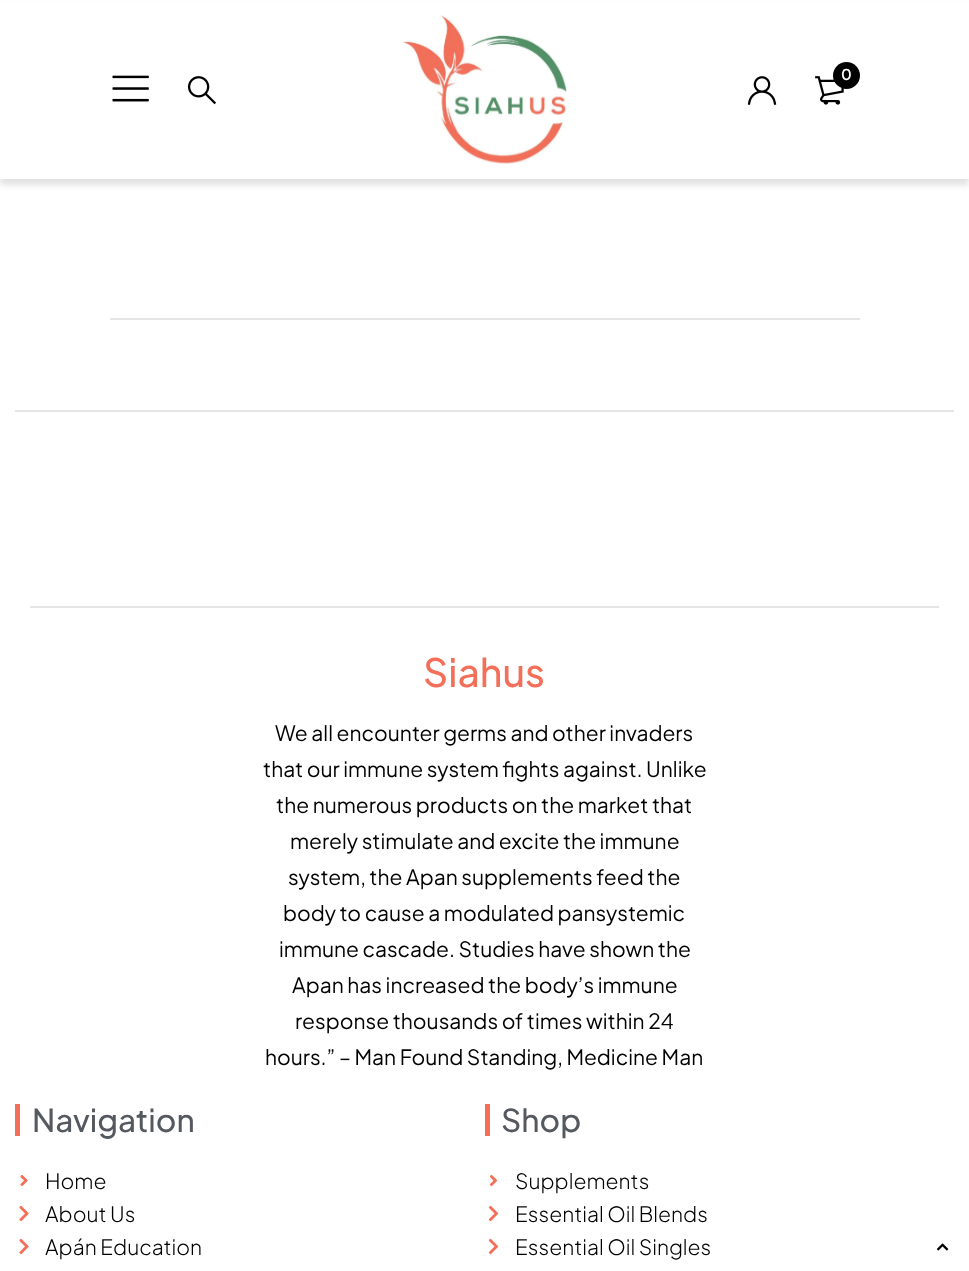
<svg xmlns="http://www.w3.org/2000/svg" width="969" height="1271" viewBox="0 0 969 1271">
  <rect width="100%" height="100%" fill="#fff"/>
  <path d="M0 6h969v179H0z" fill="#9b9b9b4d" filter="blur(3px)"/>
  <path d="M0 2h969v177H0z" fill="#fff"/>
  <image x="112" y="75" width="37" height="27" href="img/1.png"/>
  <image x="188" y="76" width="28" height="29" href="img/2.png"/>
  <image x="402" y="15" width="165" height="149" href="img/3.png"/>
  <image x="815" y="76" width="29" height="29" href="img/4.png"/>
  <circle cx="846.5" cy="75.5" r="13.5" fill="#000"/>
  <image x="747" y="76" width="30" height="29" href="img/5.png"/>
  <path d="M110 318h750v2H110z" fill="#e5e5e5"/>
  <path d="M15 410h939v2H15z" fill="#e5e5e5"/>
  <path d="M30 606h909v2H30z" fill="#e5e5e5"/>
  <path d="M15 1104h5v32H15z" fill="#f36f5a"/>
  <image x="20" y="1175" width="8" height="11" href="img/6.png"/>
  <image x="19" y="1205" width="10" height="17" href="img/7.png"/>
  <image x="19" y="1238" width="10" height="17" href="img/7.png"/>
  <path d="M485 1104h5v32H485z" fill="#f36f5a"/>
  <image x="489" y="1174" width="9" height="13" href="img/8.png"/>
  <image x="488" y="1205" width="11" height="17" href="img/9.png"/>
  <image x="488" y="1238" width="11" height="17" href="img/9.png"/>
  <image x="936" y="1243" width="13" height="8" href="img/10.png"/>
  <text x="841" y="80" font-family="Plus Jakarta Sans" font-size="15" font-weight="600" fill="#fff">0</text>
  <text x="423" y="687" font-family="Plus Jakarta Sans" font-size="39" font-weight="500" fill="#f36f5a">Siahus</text>
  <g font-family="Plus Jakarta Sans" font-size="21" fill="#000">
    <text x="275" y="741">We all encounter germs and other invaders</text>
    <text x="263" y="777">that our immune system fights against. Unlike</text>
    <text x="276" y="813">the numerous products on the market that</text>
    <text x="290" y="849">merely stimulate and excite the immune</text>
    <text x="288" y="885">system, the Apan supplements feed the</text>
    <text x="283" y="921">body to cause a modulated pansystemic</text>
    <text x="279" y="957">immune cascade. Studies have shown the</text>
    <text x="292" y="993">Apan has increased the body’s immune</text>
    <text x="295" y="1029">response thousands of times within 24</text>
    <text x="265" y="1065">hours.” – Man Found Standing, Medicine Man</text>
  </g>
  <text x="32" y="1132" font-family="Plus Jakarta Sans" font-size="31.5" font-weight="500" fill="#54595f">Navigation</text>
  <g font-family="Plus Jakarta Sans" font-size="21" font-weight="300" fill="#000">
    <text x="45" y="1189">Home</text>
    <text x="45" y="1222">About Us</text>
    <text x="45" y="1255">Apán Education</text>
  </g>
  <text x="501" y="1132" font-family="Plus Jakarta Sans" font-size="31.5" font-weight="500" fill="#54595f">Shop</text>
  <g font-family="Plus Jakarta Sans" font-size="21" font-weight="300" fill="#000">
    <text x="515" y="1189">Supplements</text>
    <text x="515" y="1222">Essential Oil Blends</text>
    <text x="515" y="1255">Essential Oil Singles</text>
  </g>
</svg>
